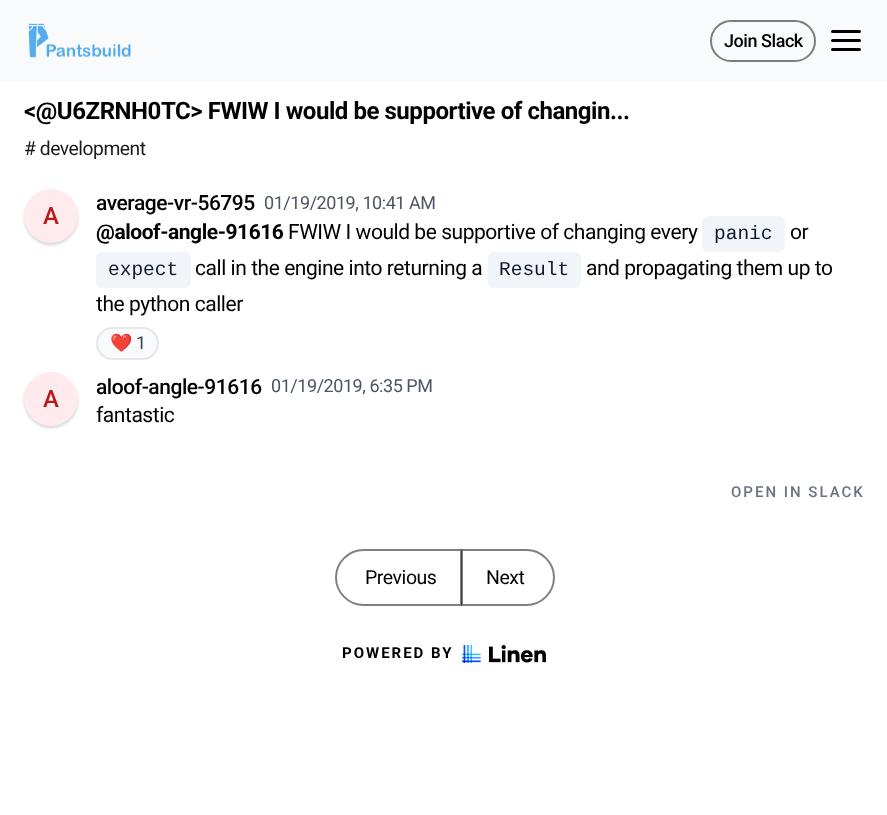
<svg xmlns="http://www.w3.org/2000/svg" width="887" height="815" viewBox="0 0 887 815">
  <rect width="100%" height="100%" fill="#fff"/>
  <path d="M0 0h887v82H0z" fill="#f8fafc"/>
  <image x="28" y="23" width="103" height="35" href="img/1.png"/>
  <rect x="711" y="21" width="104" height="40" rx="20" fill="none" stroke="#7c7d7e" stroke-width="2"/>
  <path d="M832.5 40.5H859.5M832.5 31.5H859.5M832.5 49.5H859.5" fill="none" stroke="#000" stroke-width="3" stroke-linecap="round" stroke-linejoin="round"/>
  <rect x="24" y="191" width="54" height="54" rx="27" fill="#d1d5db" filter="blur(1.5px)"/>
  <circle cx="51" cy="216" r="27" fill="#ffebee"/>
  <rect x="702" y="216" width="83" height="36" rx="6" fill="#f1f5f9"/>
  <rect x="96" y="252" width="95" height="36" rx="6" fill="#f1f5f9"/>
  <rect x="488" y="252" width="93" height="36" rx="6" fill="#f1f5f9"/>
  <rect x="97" y="328" width="61" height="31" rx="15.5" fill="#f9fafb" stroke="#e5e7eb" stroke-width="2"/>
  <rect x="24" y="374" width="54" height="54" rx="27" fill="#d1d5db" filter="blur(1.5px)"/>
  <circle cx="51" cy="399" r="27" fill="#ffebee"/>
  <path d="M363.5 550H461V605H363.5C348.5 605 336 592.5 336 577.5C336 562.5 348.5 550 363.5 550Z" fill="none" stroke="#808080" stroke-width="2"/>
  <path d="M462 550H526.5C541.5 550 554 562.5 554 577.5C554 592.5 541.5 605 526.5 605H462Z" fill="none" stroke="#00000080" stroke-width="2"/>
  <image x="462" y="645" width="84" height="18" href="img/2.png"/>
  <text x="724" y="47" font-family="Roboto" font-size="18" font-weight="500" letter-spacing="-0.45" fill="#000">Join Slack</text>
  <text x="24" y="119" font-family="Roboto" font-size="24" font-weight="bold" letter-spacing="-0.45" fill="#000">&lt;@U6ZRNH0TC&gt; FWIW I would be supportive of changin...</text>
  <text x="24" y="155" font-family="Roboto" font-size="19.25" letter-spacing="-0.45" fill="#1a1a1a"># development</text>
  <text x="43" y="224" font-family="Roboto" font-size="24" font-weight="500" letter-spacing="-0.45" fill="#b71c1c">A</text>
  <text x="96" y="210" font-family="Roboto" font-size="21" font-weight="500" letter-spacing="-0.45" fill="#000">average-vr-56795</text>
  <text x="264" y="209" font-family="Roboto" font-size="18" letter-spacing="-0.45" fill="#4b5563">01/19/2019, 10:41 AM</text>
  <text x="96" y="239" font-family="Roboto" font-size="21" font-weight="bold" letter-spacing="-0.45" fill="#000">@aloof-angle-91616</text>
  <text x="288" y="239" font-family="Roboto" font-size="21" letter-spacing="-0.45" fill="#000">FWIW I would be supportive of changing every</text>
  <text x="714" y="239" font-family="Liberation Mono" font-size="19.5" fill="#0f172a">panic</text>
  <text x="790" y="239" font-family="Roboto" font-size="21" letter-spacing="-0.45" fill="#000">or</text>
  <text x="108" y="275" font-family="Liberation Mono" font-size="19.5" fill="#0f172a">expect</text>
  <text x="195" y="275" font-family="Roboto" font-size="21" letter-spacing="-0.45" fill="#000">call in the engine into returning a</text>
  <text x="499" y="275" font-family="Liberation Mono" font-size="19.5" fill="#0f172a">Result</text>
  <g font-family="Roboto" font-size="21" letter-spacing="-0.45" fill="#000">
    <text x="586" y="275">and propagating them up to</text>
    <text x="96" y="311">the python caller</text>
  </g>
  <text x="110" y="349" font-family="Noto Color Emoji" font-size="18" letter-spacing="-0.45" fill="#374151">❤️</text>
  <text x="136" y="349" font-family="Roboto" font-size="18" letter-spacing="-0.45" fill="#374151">1</text>
  <text x="43" y="407" font-family="Roboto" font-size="24" font-weight="500" letter-spacing="-0.45" fill="#b71c1c">A</text>
  <text x="96" y="394" font-family="Roboto" font-size="21" font-weight="500" letter-spacing="-0.45" fill="#000">aloof-angle-91616</text>
  <text x="271" y="392" font-family="Roboto" font-size="18" letter-spacing="-0.45" fill="#4b5563">01/19/2019, 6:35 PM</text>
  <text x="96" y="422" font-family="Roboto" font-size="21" letter-spacing="-0.45" fill="#000">fantastic</text>
  <text x="731" y="497" font-family="Roboto" font-size="15" font-weight="500" letter-spacing="2" fill="#6b7280">OPEN IN SLACK</text>
  <g font-family="Roboto" font-size="19.5" letter-spacing="-0.45" fill="#000">
    <text x="365" y="584">Previous</text>
    <text x="486" y="584">Next</text>
  </g>
  <text x="342" y="658" font-family="Roboto" font-size="15" font-weight="bold" letter-spacing="2" fill="#000">POWERED BY</text>
</svg>
